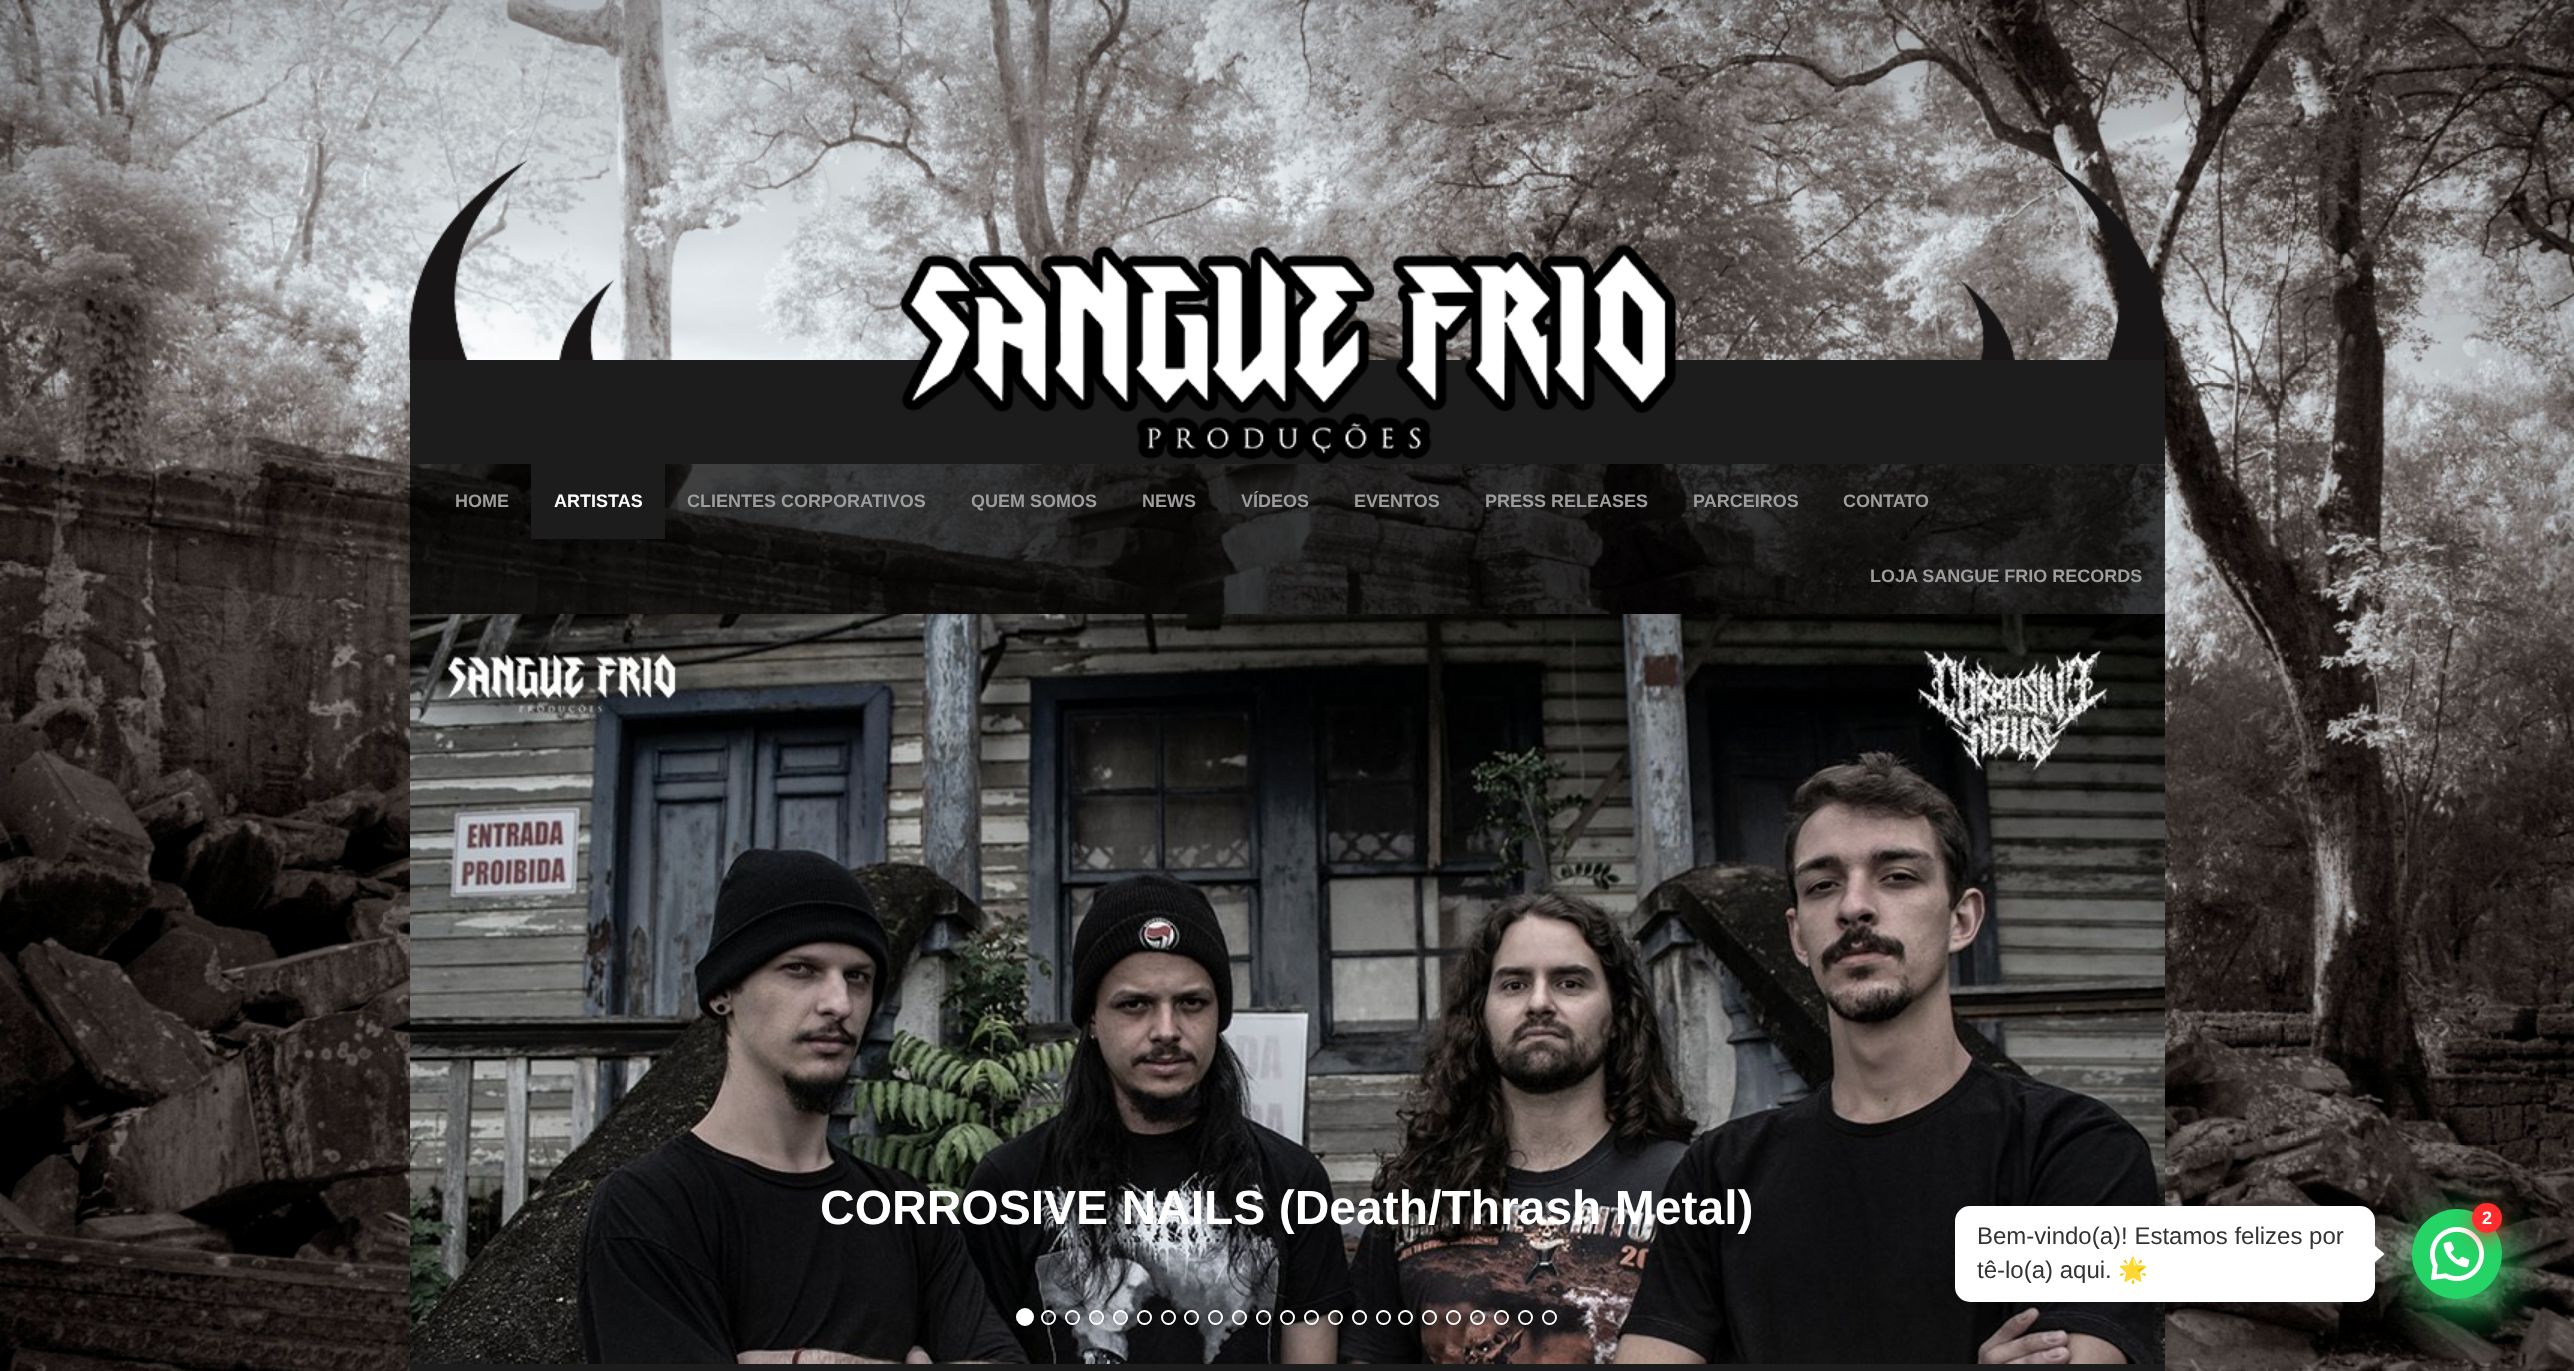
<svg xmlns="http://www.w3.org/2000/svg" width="2574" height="1371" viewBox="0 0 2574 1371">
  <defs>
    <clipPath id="clip1"><path d="M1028 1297H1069V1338H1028ZM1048.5 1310C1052.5 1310 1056 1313.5 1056 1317.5C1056 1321.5 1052.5 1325 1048.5 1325C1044.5 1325 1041 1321.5 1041 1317.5C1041 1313.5 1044.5 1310 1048.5 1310Z" clip-rule="evenodd"/></clipPath>
    <clipPath id="clip2"><path d="M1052 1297H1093V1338H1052ZM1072.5 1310C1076.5 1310 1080 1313.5 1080 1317.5C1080 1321.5 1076.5 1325 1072.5 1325C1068.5 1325 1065 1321.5 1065 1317.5C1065 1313.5 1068.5 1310 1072.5 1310Z" clip-rule="evenodd"/></clipPath>
    <clipPath id="clip3"><path d="M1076 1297H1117V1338H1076ZM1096.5 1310C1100.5 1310 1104 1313.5 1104 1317.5C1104 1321.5 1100.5 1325 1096.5 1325C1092.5 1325 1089 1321.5 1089 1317.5C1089 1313.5 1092.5 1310 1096.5 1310Z" clip-rule="evenodd"/></clipPath>
    <clipPath id="clip4"><path d="M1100 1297H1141V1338H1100ZM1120.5 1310C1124.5 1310 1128 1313.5 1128 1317.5C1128 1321.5 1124.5 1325 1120.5 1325C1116.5 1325 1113 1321.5 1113 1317.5C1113 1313.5 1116.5 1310 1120.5 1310Z" clip-rule="evenodd"/></clipPath>
    <clipPath id="clip5"><path d="M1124 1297H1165V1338H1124ZM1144.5 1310C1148.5 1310 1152 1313.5 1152 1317.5C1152 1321.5 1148.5 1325 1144.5 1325C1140.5 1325 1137 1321.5 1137 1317.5C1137 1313.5 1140.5 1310 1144.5 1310Z" clip-rule="evenodd"/></clipPath>
    <clipPath id="clip6"><path d="M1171 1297H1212V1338H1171ZM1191.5 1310C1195.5 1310 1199 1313.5 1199 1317.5C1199 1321.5 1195.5 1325 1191.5 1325C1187.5 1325 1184 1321.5 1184 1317.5C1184 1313.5 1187.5 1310 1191.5 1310Z" clip-rule="evenodd"/></clipPath>
    <clipPath id="clip7"><path d="M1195 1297H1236V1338H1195ZM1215.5 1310C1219.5 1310 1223 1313.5 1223 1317.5C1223 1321.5 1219.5 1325 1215.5 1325C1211.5 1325 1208 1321.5 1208 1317.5C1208 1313.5 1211.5 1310 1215.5 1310Z" clip-rule="evenodd"/></clipPath>
    <clipPath id="clip8"><path d="M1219 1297H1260V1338H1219ZM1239.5 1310C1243.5 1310 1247 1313.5 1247 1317.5C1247 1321.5 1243.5 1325 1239.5 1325C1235.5 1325 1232 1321.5 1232 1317.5C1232 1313.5 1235.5 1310 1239.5 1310Z" clip-rule="evenodd"/></clipPath>
    <clipPath id="clip9"><path d="M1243 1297H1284V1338H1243ZM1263.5 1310C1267.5 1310 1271 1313.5 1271 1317.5C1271 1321.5 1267.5 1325 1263.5 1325C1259.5 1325 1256 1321.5 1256 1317.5C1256 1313.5 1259.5 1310 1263.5 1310Z" clip-rule="evenodd"/></clipPath>
    <clipPath id="clip10"><path d="M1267 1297H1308V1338H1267ZM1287.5 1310C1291.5 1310 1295 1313.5 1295 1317.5C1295 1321.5 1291.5 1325 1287.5 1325C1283.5 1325 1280 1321.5 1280 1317.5C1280 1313.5 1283.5 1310 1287.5 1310Z" clip-rule="evenodd"/></clipPath>
    <clipPath id="clip11"><path d="M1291 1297H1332V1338H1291ZM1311.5 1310C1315.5 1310 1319 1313.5 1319 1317.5C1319 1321.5 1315.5 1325 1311.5 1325C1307.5 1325 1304 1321.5 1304 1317.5C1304 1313.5 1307.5 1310 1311.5 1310Z" clip-rule="evenodd"/></clipPath>
    <clipPath id="clip12"><path d="M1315 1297H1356V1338H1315ZM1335.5 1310C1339.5 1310 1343 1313.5 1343 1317.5C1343 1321.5 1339.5 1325 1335.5 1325C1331.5 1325 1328 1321.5 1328 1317.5C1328 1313.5 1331.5 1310 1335.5 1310Z" clip-rule="evenodd"/></clipPath>
    <clipPath id="clip13"><path d="M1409 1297H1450V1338H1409ZM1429.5 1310C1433.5 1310 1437 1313.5 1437 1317.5C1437 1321.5 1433.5 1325 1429.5 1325C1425.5 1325 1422 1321.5 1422 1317.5C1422 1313.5 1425.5 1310 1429.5 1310Z" clip-rule="evenodd"/></clipPath>
    <clipPath id="clip14"><path d="M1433 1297H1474V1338H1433ZM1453.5 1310C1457.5 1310 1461 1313.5 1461 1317.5C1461 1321.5 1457.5 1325 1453.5 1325C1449.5 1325 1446 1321.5 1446 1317.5C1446 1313.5 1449.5 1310 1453.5 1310Z" clip-rule="evenodd"/></clipPath>
    <clipPath id="clip15"><path d="M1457 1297H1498V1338H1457ZM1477.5 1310C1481.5 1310 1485 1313.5 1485 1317.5C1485 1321.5 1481.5 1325 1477.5 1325C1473.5 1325 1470 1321.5 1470 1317.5C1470 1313.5 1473.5 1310 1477.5 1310Z" clip-rule="evenodd"/></clipPath>
    <clipPath id="clip16"><path d="M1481 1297H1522V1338H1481ZM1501.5 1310C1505.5 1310 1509 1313.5 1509 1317.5C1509 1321.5 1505.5 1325 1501.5 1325C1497.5 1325 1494 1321.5 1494 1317.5C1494 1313.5 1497.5 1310 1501.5 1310Z" clip-rule="evenodd"/></clipPath>
  </defs>
  <rect width="100%" height="100%" fill="#fff"/>
  <image x="0" y="0" width="2574" height="1371" href="img/1.png"/>
  <path d="M410 360h1755v104H410z" fill="#1d1c1c"/>
  <image x="409" y="159" width="206" height="201" href="img/2.png"/>
  <image x="900" y="244" width="776" height="220" href="img/3.png"/>
  <image x="1959" y="159" width="206" height="201" href="img/4.png"/>
  <path d="M410 464h1755v150H410z" fill="#000000bf"/>
  <path d="M531 464h134v75H531z" fill="#1d1c1c"/>
  <image x="410" y="614" width="1755" height="750" href="img/5.png"/>
  <circle cx="1025" cy="1317" r="8" fill="#fff" stroke="#fff" stroke-width="2"/>
  <g clip-path="url(#clip1)">
    <rect x="1041" y="1310" width="15" height="15" rx="7.5" fill="#00000080" filter="blur(4px)"/>
  </g>
  <circle cx="1048.5" cy="1317.5" r="6.5" fill="none" stroke="#fff" stroke-width="2"/>
  <g clip-path="url(#clip2)">
    <rect x="1065" y="1310" width="15" height="15" rx="7.5" fill="#00000080" filter="blur(4px)"/>
  </g>
  <circle cx="1072.5" cy="1317.5" r="6.5" fill="none" stroke="#fff" stroke-width="2"/>
  <g clip-path="url(#clip3)">
    <rect x="1089" y="1310" width="15" height="15" rx="7.5" fill="#00000080" filter="blur(4px)"/>
  </g>
  <circle cx="1096.5" cy="1317.5" r="6.5" fill="none" stroke="#fff" stroke-width="2"/>
  <g clip-path="url(#clip4)">
    <rect x="1113" y="1310" width="15" height="15" rx="7.5" fill="#00000080" filter="blur(4px)"/>
  </g>
  <circle cx="1120.5" cy="1317.5" r="6.5" fill="none" stroke="#fff" stroke-width="2"/>
  <g clip-path="url(#clip5)">
    <rect x="1137" y="1310" width="15" height="15" rx="7.5" fill="#00000080" filter="blur(4px)"/>
  </g>
  <circle cx="1144.5" cy="1317.5" r="6.5" fill="none" stroke="#fff" stroke-width="2"/>
  <circle cx="1168.5" cy="1317.5" r="6.5" fill="none" stroke="#fff" stroke-width="2"/>
  <g clip-path="url(#clip6)">
    <rect x="1184" y="1310" width="15" height="15" rx="7.5" fill="#00000080" filter="blur(4px)"/>
  </g>
  <circle cx="1191.5" cy="1317.5" r="6.5" fill="none" stroke="#fff" stroke-width="2"/>
  <g clip-path="url(#clip7)">
    <rect x="1208" y="1310" width="15" height="15" rx="7.5" fill="#00000080" filter="blur(4px)"/>
  </g>
  <circle cx="1215.5" cy="1317.5" r="6.5" fill="none" stroke="#fff" stroke-width="2"/>
  <g clip-path="url(#clip8)">
    <rect x="1232" y="1310" width="15" height="15" rx="7.5" fill="#00000080" filter="blur(4px)"/>
  </g>
  <circle cx="1239.5" cy="1317.5" r="6.5" fill="none" stroke="#fff" stroke-width="2"/>
  <g clip-path="url(#clip9)">
    <rect x="1256" y="1310" width="15" height="15" rx="7.5" fill="#00000080" filter="blur(4px)"/>
  </g>
  <circle cx="1263.5" cy="1317.5" r="6.5" fill="none" stroke="#fff" stroke-width="2"/>
  <g clip-path="url(#clip10)">
    <rect x="1280" y="1310" width="15" height="15" rx="7.5" fill="#00000080" filter="blur(4px)"/>
  </g>
  <circle cx="1287.5" cy="1317.5" r="6.5" fill="none" stroke="#fff" stroke-width="2"/>
  <g clip-path="url(#clip11)">
    <rect x="1304" y="1310" width="15" height="15" rx="7.5" fill="#00000080" filter="blur(4px)"/>
  </g>
  <circle cx="1311.5" cy="1317.5" r="6.5" fill="none" stroke="#fff" stroke-width="2"/>
  <g clip-path="url(#clip12)">
    <rect x="1328" y="1310" width="15" height="15" rx="7.5" fill="#00000080" filter="blur(4px)"/>
  </g>
  <circle cx="1335.5" cy="1317.5" r="6.5" fill="none" stroke="#fff" stroke-width="2"/>
  <circle cx="1359.5" cy="1317.5" r="6.5" fill="none" stroke="#fff" stroke-width="2"/>
  <circle cx="1383.5" cy="1317.5" r="6.5" fill="none" stroke="#fff" stroke-width="2"/>
  <circle cx="1405.5" cy="1317.5" r="6.5" fill="none" stroke="#fff" stroke-width="2"/>
  <g clip-path="url(#clip13)">
    <rect x="1422" y="1310" width="15" height="15" rx="7.5" fill="#00000080" filter="blur(4px)"/>
  </g>
  <circle cx="1429.5" cy="1317.5" r="6.5" fill="none" stroke="#fff" stroke-width="2"/>
  <g clip-path="url(#clip14)">
    <rect x="1446" y="1310" width="15" height="15" rx="7.5" fill="#00000080" filter="blur(4px)"/>
  </g>
  <circle cx="1453.5" cy="1317.5" r="6.5" fill="none" stroke="#fff" stroke-width="2"/>
  <g clip-path="url(#clip15)">
    <rect x="1470" y="1310" width="15" height="15" rx="7.5" fill="#00000080" filter="blur(4px)"/>
  </g>
  <circle cx="1477.5" cy="1317.5" r="6.5" fill="none" stroke="#fff" stroke-width="2"/>
  <g clip-path="url(#clip16)">
    <rect x="1494" y="1310" width="15" height="15" rx="7.5" fill="#00000080" filter="blur(4px)"/>
  </g>
  <circle cx="1501.5" cy="1317.5" r="6.5" fill="none" stroke="#fff" stroke-width="2"/>
  <circle cx="1525.5" cy="1317.5" r="6.5" fill="none" stroke="#fff" stroke-width="2"/>
  <circle cx="1549.5" cy="1317.5" r="6.5" fill="none" stroke="#fff" stroke-width="2"/>
  <rect x="2417" y="1221" width="90" height="90" rx="45" fill="#25d366de" filter="blur(22.5px)"/>
  <circle cx="2457" cy="1254" r="45" fill="#25d366"/>
  <image x="2430" y="1227" width="54" height="54" href="img/6.png"/>
  <rect x="2472" y="1209" width="30" height="30" rx="15" fill="#ff2d2db8" filter="blur(9px)"/>
  <circle cx="2487" cy="1218" r="15" fill="#ff2d2d"/>
  <rect x="1959" y="1218" width="411" height="87" rx="11" fill="#0000004d" filter="blur(15px)"/>
  <rect x="1955" y="1206" width="420" height="96" rx="15" fill="#fff"/>
  <image x="2373" y="1241" width="14" height="26" href="img/7.png"/>
  <path d="M410 1364h1755v7H410z" fill="#1d1c1c"/>
  <text x="455" y="507" font-family="Liberation Sans" font-size="18" font-weight="bold" fill="#9d9d9d">HOME</text>
  <text x="554" y="507" font-family="Liberation Sans" font-size="18" font-weight="bold" fill="#fff">ARTISTAS</text>
  <g font-family="Liberation Sans" font-size="18" font-weight="bold" fill="#9d9d9d">
    <text x="687" y="507">CLIENTES CORPORATIVOS</text>
    <text x="971" y="507">QUEM SOMOS</text>
    <text x="1142" y="507">NEWS</text>
    <text x="1241" y="507">VÍDEOS</text>
    <text x="1354" y="507">EVENTOS</text>
    <text x="1485" y="507">PRESS RELEASES</text>
    <text x="1693" y="507">PARCEIROS</text>
    <text x="1843" y="507">CONTATO</text>
    <text x="1870" y="582">LOJA SANGUE FRIO RECORDS</text>
  </g>
  <text x="820" y="1224" font-family="Liberation Sans" font-size="48" font-weight="bold" fill="#fff">CORROSIVE NAILS (Death/Thrash Metal)</text>
  <text x="2482" y="1224" font-family="Liberation Sans" font-size="18" font-weight="bold" fill="#fff">2</text>
  <g font-family="Liberation Sans" font-size="24" fill="#333">
    <text x="1977" y="1244">Bem-vindo(a)! Estamos felizes por</text>
    <text x="1977" y="1278">tê-lo(a) aqui.</text>
  </g>
  <text x="2118" y="1278" font-family="Noto Color Emoji" font-size="24" fill="#333">🌟</text>
</svg>
